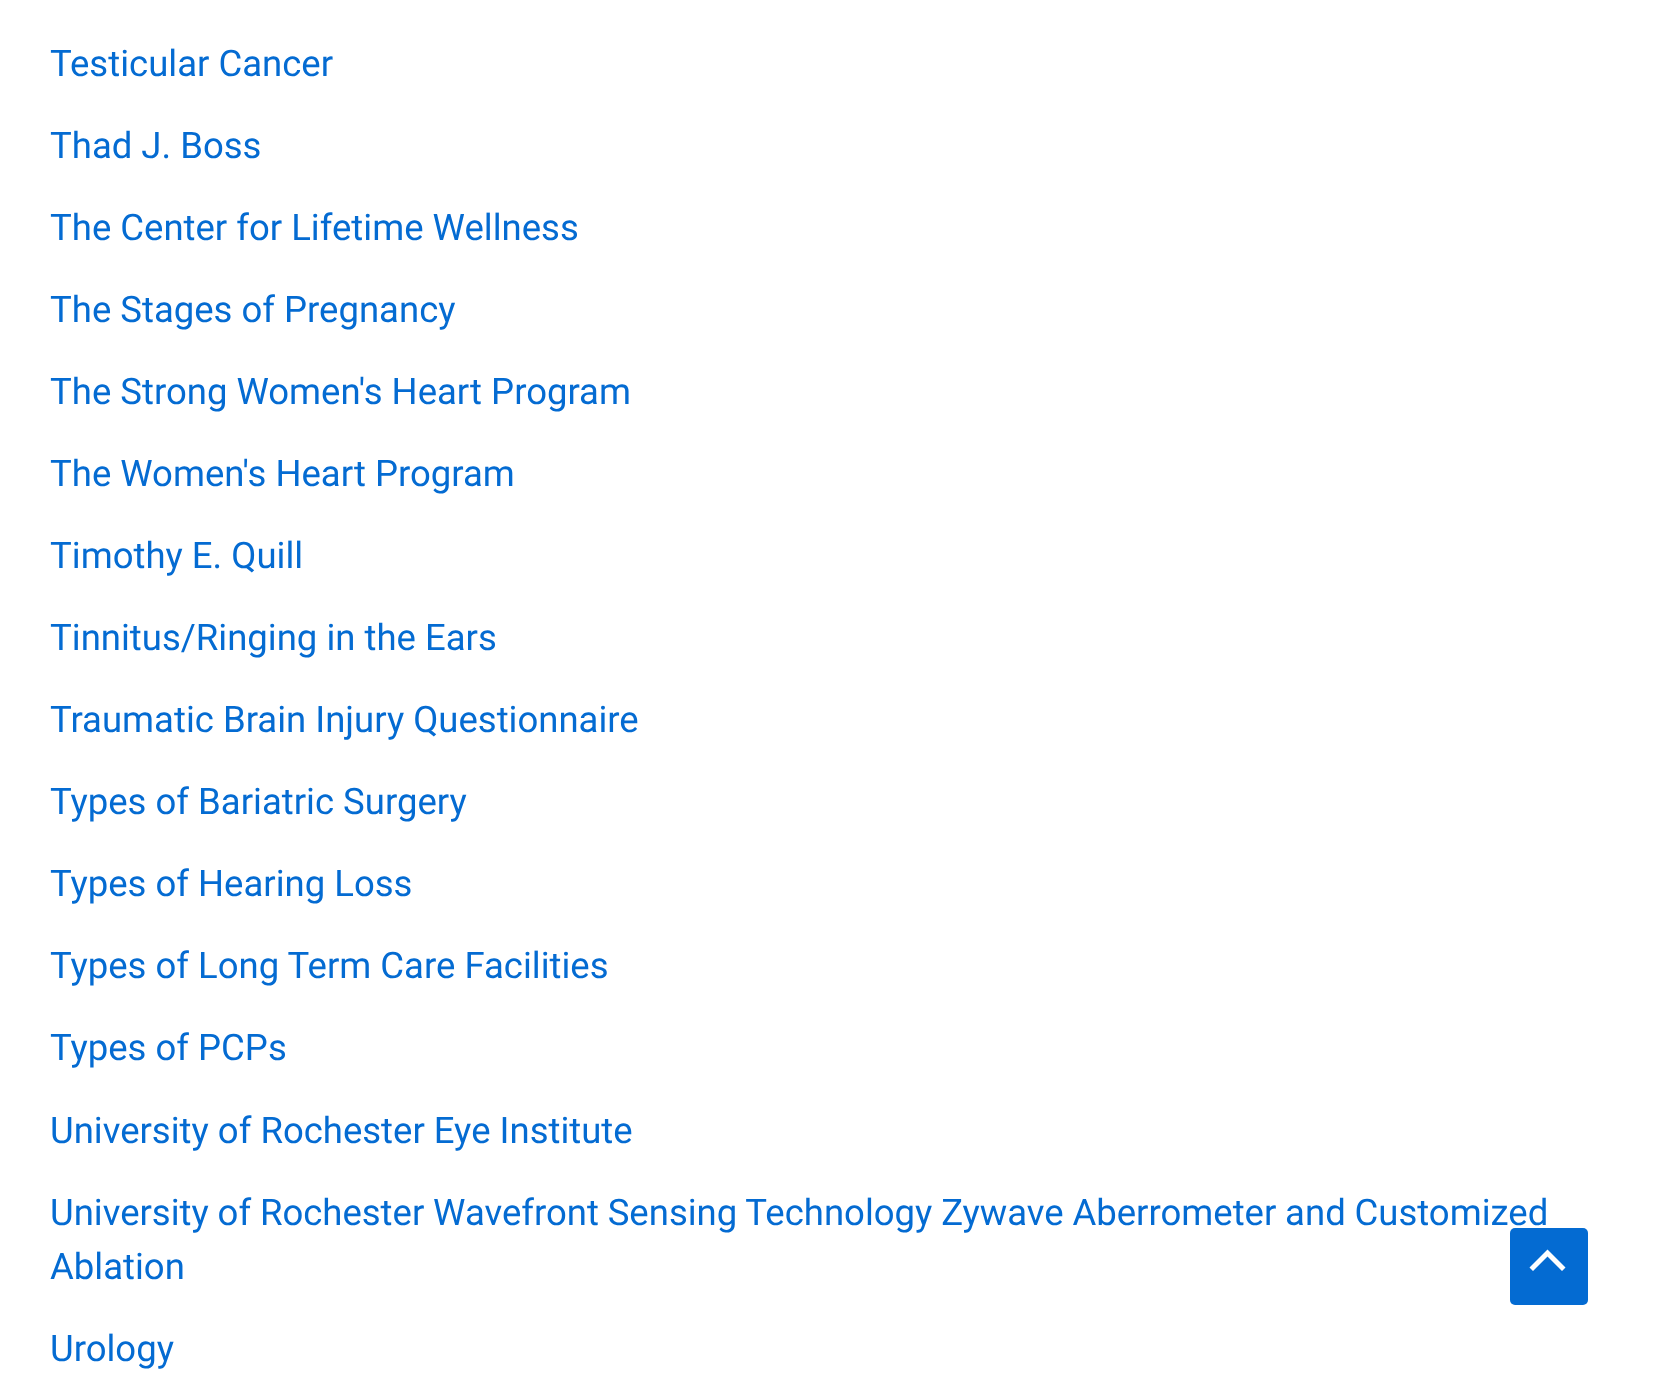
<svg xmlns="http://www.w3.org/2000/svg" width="1661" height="1380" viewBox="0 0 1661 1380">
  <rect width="100%" height="100%" fill="#fff"/>
  <rect x="1510" y="1228" width="78" height="77" rx="5" fill="#046bd2"/>
  <path d="M1565.5 1267.5L1547.5 1249.5L1529.5 1267.5L1533 1271L1547.5 1256.5L1562 1271Z" fill="#fff"/>
  <g font-family="Roboto" font-size="36.5" fill="#046bd2">
    <text x="50" y="76">Testicular Cancer</text>
    <text x="50" y="158">Thad J. Boss</text>
    <text x="50" y="240">The Center for Lifetime Wellness</text>
    <text x="50" y="322">The Stages of Pregnancy</text>
    <text x="50" y="404">The Strong Women's Heart Program</text>
    <text x="50" y="486">The Women's Heart Program</text>
    <text x="50" y="568">Timothy E. Quill</text>
    <text x="50" y="650">Tinnitus/Ringing in the Ears</text>
    <text x="50" y="732">Traumatic Brain Injury Questionnaire</text>
    <text x="50" y="814">Types of Bariatric Surgery</text>
    <text x="50" y="896">Types of Hearing Loss</text>
    <text x="50" y="978">Types of Long Term Care Facilities</text>
    <text x="50" y="1060">Types of PCPs</text>
    <text x="50" y="1143">University of Rochester Eye Institute</text>
    <text x="50" y="1225" word-spacing="-0.25">University of Rochester Wavefront Sensing Technology Zywave Aberrometer and Customized</text>
    <text x="50" y="1279">Ablation</text>
    <text x="50" y="1361">Urology</text>
  </g>
</svg>
